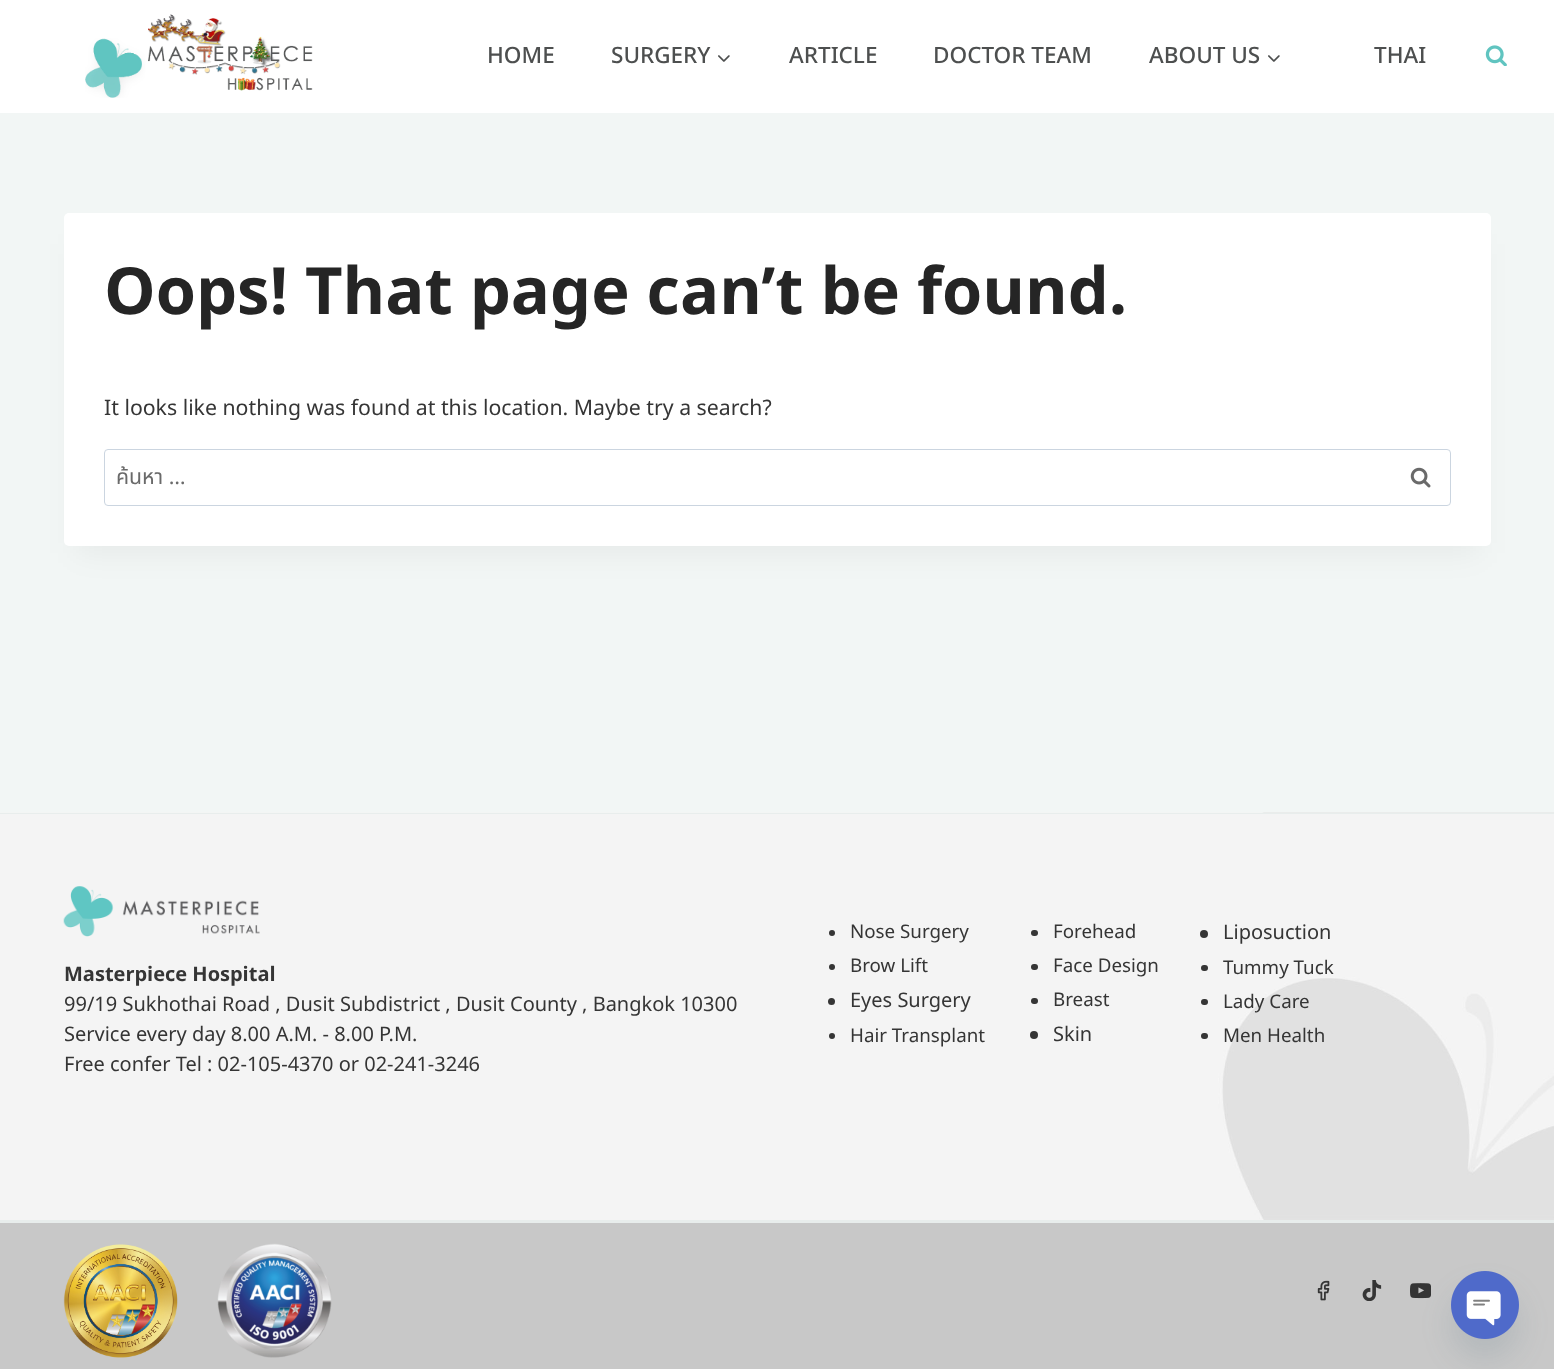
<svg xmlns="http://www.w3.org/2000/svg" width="1554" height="1369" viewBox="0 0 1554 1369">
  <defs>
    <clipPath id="clip1"><path d="M116 461h1239v33H116z"/></clipPath>
  </defs>
  <rect width="100%" height="100%" fill="#f2f6f5"/>
  <path d="M0 0h1554v113H0z" fill="#fff"/>
  <image x="85" y="14" width="228" height="84" href="img/1.png"/>
  <image x="718" y="55" width="12" height="7" href="img/2.png"/>
  <image x="1268" y="55" width="12" height="7" href="img/2.png"/>
  <image x="1485" y="45" width="22" height="21" href="img/3.png"/>
  <path d="M76 244h1403v309H76z" fill="#0000000d" filter="blur(15.5px)"/>
  <rect x="64" y="213" width="1427" height="333" rx="5" fill="#fff"/>
  <rect x="104.5" y="449.5" width="1346" height="56" rx="3.5" fill="none" stroke="#cbd5e0"/>
  <image x="1410" y="467" width="21" height="21" href="img/4.png"/>
  <image x="0" y="812" width="1554" height="408" href="img/5.png"/>
  <path d="M0 813h1554v1H0z" fill="#e8edec"/>
  <image x="63" y="886" width="197" height="51" href="img/6.png"/>
  <circle cx="832" cy="933" r="3" fill="#353535"/>
  <circle cx="832" cy="967" r="3" fill="#353535"/>
  <circle cx="831.5" cy="1001.5" r="3.5" fill="#353535"/>
  <circle cx="832" cy="1036" r="3" fill="#353535"/>
  <rect x="1031" y="930" width="7" height="6" rx="3" fill="#353535"/>
  <rect x="1031" y="964" width="7" height="6" rx="3" fill="#353535"/>
  <rect x="1031" y="998" width="7" height="6" rx="3" fill="#353535"/>
  <circle cx="1034" cy="1035" r="4" fill="#353535"/>
  <circle cx="1204" cy="934" r="4" fill="#353535"/>
  <rect x="1201" y="965" width="7" height="6" rx="3" fill="#353535"/>
  <rect x="1201" y="999" width="7" height="6" rx="3" fill="#353535"/>
  <rect x="1201" y="1033" width="7" height="6" rx="3" fill="#353535"/>
  <path d="M0 1223h1554v146H0z" fill="#c8c8c8"/>
  <path d="M0 1220h1554v3H0z" fill="#e8edec"/>
  <image x="63" y="1244" width="115" height="114" href="img/7.png"/>
  <image x="217" y="1243" width="115" height="115" href="img/8.png"/>
  <image x="1317" y="1280" width="13" height="21" href="img/9.png"/>
  <image x="1362" y="1280" width="20" height="21" href="img/10.png"/>
  <image x="1410" y="1283" width="21" height="16" href="img/11.png"/>
  <rect x="1451" y="1291" width="68" height="68" rx="34" fill="#49687e29" filter="blur(15px)"/>
  <image x="1451" y="1271" width="68" height="68" href="img/12.png"/>
  <g font-family="Noto Sans Thai" font-size="22.5" font-weight="500" fill="#4d4f4f">
    <text x="487" y="63">HOME</text>
    <text x="611" y="63">SURGERY</text>
    <text x="789" y="63">ARTICLE</text>
    <text x="933" y="63">DOCTOR TEAM</text>
    <text x="1149" y="63">ABOUT US</text>
    <text x="1374" y="63">THAI</text>
  </g>
  <text x="104" y="314" font-family="Noto Sans Thai" font-size="65" font-weight="bold" fill="#252525">Oops! That page can’t be found.</text>
  <text x="104" y="415" font-family="Noto Sans Thai" font-size="21.25" fill="#353535">It looks like nothing was found at this location. Maybe try a search?</text>
  <g clip-path="url(#clip1)">
    <text x="116" y="484" font-family="Noto Sans Thai" font-size="21.25" fill="#6a6a6a">ค้นหา …</text>
  </g>
  <text x="64" y="981" font-family="Noto Sans Thai" font-size="20" font-weight="bold" fill="#353535">Masterpiece Hospital</text>
  <g font-family="Noto Sans Thai" font-size="20" fill="#353535">
    <text x="64" y="1011">99/19 Sukhothai Road , Dusit Subdistrict , Dusit County , Bangkok 10300</text>
    <text x="64" y="1041">Service every day 8.00 A.M. - 8.00 P.M.</text>
    <text x="64" y="1071">Free confer Tel : 02-105-4370 or 02-241-3246</text>
  </g>
  <g font-family="Noto Sans Thai" font-size="18.75" fill="#353535">
    <text x="850" y="938">Nose Surgery</text>
    <text x="850" y="972">Brow Lift</text>
  </g>
  <text x="850" y="1007" font-family="Noto Sans Thai" font-size="20" fill="#353535">Eyes Surgery</text>
  <g font-family="Noto Sans Thai" font-size="18.75" fill="#353535">
    <text x="850" y="1042">Hair Transplant</text>
    <text x="1053" y="938">Forehead</text>
    <text x="1053" y="972">Face Design</text>
    <text x="1053" y="1006">Breast</text>
  </g>
  <g font-family="Noto Sans Thai" font-size="20" fill="#353535">
    <text x="1053" y="1041">Skin</text>
    <text x="1223" y="939">Liposuction</text>
  </g>
  <g font-family="Noto Sans Thai" font-size="18.75" fill="#353535">
    <text x="1223" y="974">Tummy Tuck</text>
    <text x="1223" y="1008">Lady Care</text>
    <text x="1223" y="1042">Men Health</text>
  </g>
</svg>
